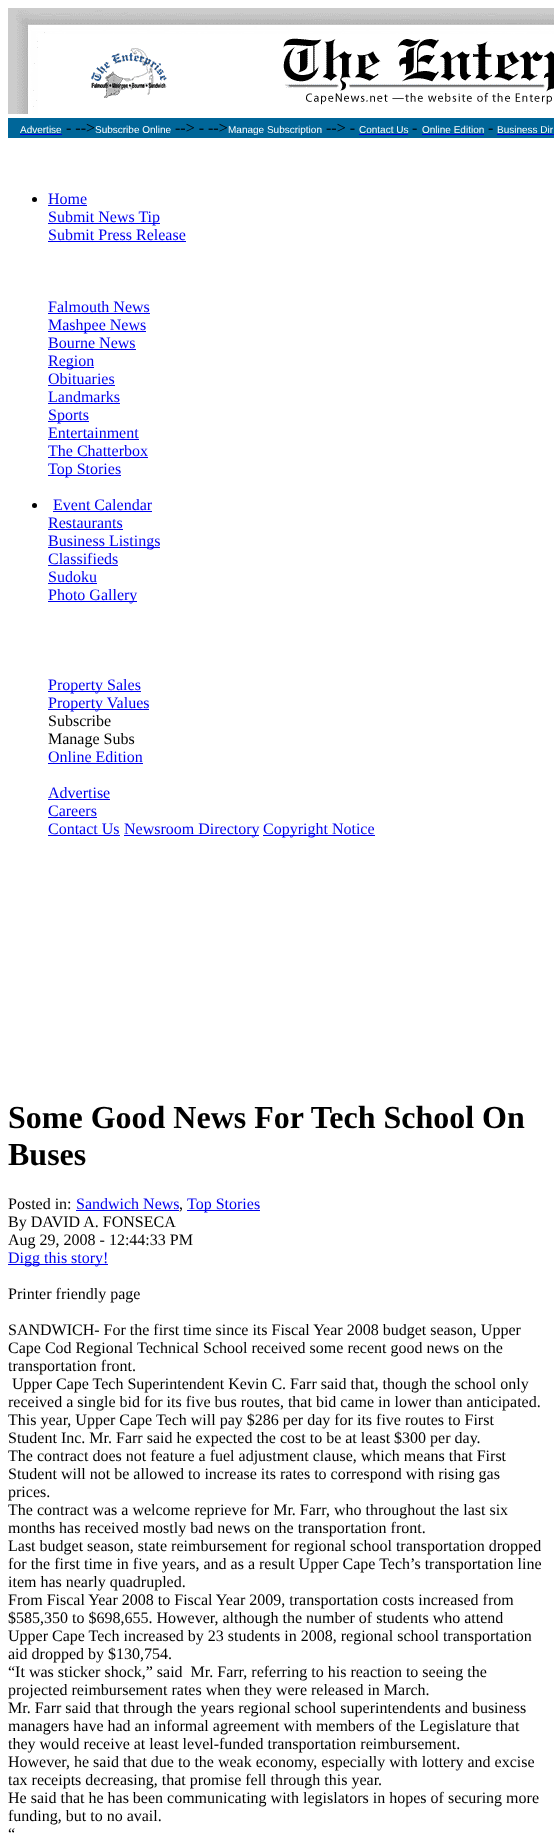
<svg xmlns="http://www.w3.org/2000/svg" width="554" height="1835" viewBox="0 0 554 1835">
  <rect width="100%" height="100%" fill="#fff"/>
  <image x="8" y="8" width="546" height="106" href="img/1.png"/>
  <path d="M8 118h546v20H8z" fill="#069"/>
  <path d="M20 134h42v1H20z" fill="#00e"/>
  <path d="M359 134h49v1H359z" fill="#00e"/>
  <path d="M422 134h62v1H422z" fill="#00e"/>
  <path d="M497 134h57v1H497z" fill="#00e"/>
  <circle cx="34.5" cy="199.5" r="2.5" fill="#000"/>
  <path d="M48 205h39v1H48z" fill="#00e"/>
  <path d="M48 223h112v1H48z" fill="#00e"/>
  <path d="M48 241h138v1H48z" fill="#00e"/>
  <path d="M48 313h102v1H48z" fill="#00e"/>
  <path d="M48 331h98v1H48z" fill="#00e"/>
  <path d="M48 349h88v1H48z" fill="#00e"/>
  <path d="M48 367h46v1H48z" fill="#00e"/>
  <path d="M48 385h67v1H48z" fill="#00e"/>
  <path d="M48 403h72v1H48z" fill="#00e"/>
  <path d="M48 421h41v1H48z" fill="#00e"/>
  <path d="M48 439h91v1H48z" fill="#00e"/>
  <path d="M48 457h100v1H48z" fill="#00e"/>
  <path d="M48 475h73v1H48z" fill="#00e"/>
  <circle cx="34.5" cy="505.5" r="2.5" fill="#000"/>
  <path d="M53 511h99v1H53z" fill="#00e"/>
  <path d="M48 529h75v1H48z" fill="#00e"/>
  <path d="M48 547h112v1H48z" fill="#00e"/>
  <path d="M48 565h70v1H48z" fill="#00e"/>
  <path d="M48 583h49v1H48z" fill="#00e"/>
  <path d="M48 601h89v1H48z" fill="#00e"/>
  <path d="M48 691h93v1H48z" fill="#00e"/>
  <path d="M48 709h101v1H48z" fill="#00e"/>
  <path d="M48 763h95v1H48z" fill="#00e"/>
  <path d="M48 799h62v1H48z" fill="#00e"/>
  <path d="M48 817h49v1H48z" fill="#00e"/>
  <path d="M48 835h72v1H48z" fill="#00e"/>
  <path d="M124 835h135v1H124z" fill="#00e"/>
  <path d="M263 835h112v1H263z" fill="#00e"/>
  <path d="M76 1210h103v1H76z" fill="#00e"/>
  <path d="M187 1210h73v1H187z" fill="#00e"/>
  <path d="M8 1264h100v1H8z" fill="#00e"/>
  <text x="20" y="133" font-family="Liberation Sans" font-size="10" fill="#fff">Advertise</text>
  <text x="66" y="133" font-family="Liberation Serif" font-size="16" fill="#000">- --&gt;</text>
  <text x="95" y="133" font-family="Liberation Sans" font-size="10" fill="#fff">Subscribe Online</text>
  <text x="175" y="133" font-family="Liberation Serif" font-size="16" fill="#000">--&gt; - --&gt;</text>
  <text x="228" y="133" font-family="Liberation Sans" font-size="10" fill="#fff">Manage Subscription</text>
  <text x="326" y="133" font-family="Liberation Serif" font-size="16" fill="#000">--&gt; -</text>
  <text x="359" y="133" font-family="Liberation Sans" font-size="10" fill="#fff">Contact Us</text>
  <text x="412" y="133" font-family="Liberation Serif" font-size="16" fill="#000">-</text>
  <text x="422" y="133" font-family="Liberation Sans" font-size="10" fill="#fff">Online Edition</text>
  <text x="488" y="133" font-family="Liberation Serif" font-size="16" fill="#000">-</text>
  <text x="497" y="133" font-family="Liberation Sans" font-size="10" fill="#fff">Business Dir</text>
  <g font-family="Liberation Serif" font-size="16" fill="#00e">
    <text x="48" y="204">Home</text>
    <text x="48" y="222">Submit News Tip</text>
    <text x="48" y="240">Submit Press Release</text>
    <text x="48" y="312">Falmouth News</text>
    <text x="48" y="330">Mashpee News</text>
    <text x="48" y="348">Bourne News</text>
    <text x="48" y="366">Region</text>
    <text x="48" y="384">Obituaries</text>
    <text x="48" y="402">Landmarks</text>
    <text x="48" y="420">Sports</text>
    <text x="48" y="438">Entertainment</text>
    <text x="48" y="456">The Chatterbox</text>
    <text x="48" y="474">Top Stories</text>
    <text x="53" y="510">Event Calendar</text>
    <text x="48" y="528">Restaurants</text>
    <text x="48" y="546">Business Listings</text>
    <text x="48" y="564">Classifieds</text>
    <text x="48" y="582">Sudoku</text>
    <text x="48" y="600">Photo Gallery</text>
    <text x="48" y="690">Property Sales</text>
    <text x="48" y="708">Property Values</text>
  </g>
  <g font-family="Liberation Serif" font-size="16" fill="#000">
    <text x="48" y="726">Subscribe</text>
    <text x="48" y="744">Manage Subs</text>
  </g>
  <g font-family="Liberation Serif" font-size="16" fill="#00e">
    <text x="48" y="762">Online Edition</text>
    <text x="48" y="798">Advertise</text>
    <text x="48" y="816">Careers</text>
    <text x="48" y="834">Contact Us</text>
    <text x="124" y="834">Newsroom Directory</text>
    <text x="263" y="834">Copyright Notice</text>
  </g>
  <g font-family="Liberation Serif" font-size="32" font-weight="bold" fill="#000">
    <text x="8" y="1128">Some Good News For Tech School On</text>
    <text x="8" y="1165">Buses</text>
  </g>
  <text x="8" y="1209" font-family="Liberation Serif" font-size="16" fill="#000">Posted in:</text>
  <text x="76" y="1209" font-family="Liberation Serif" font-size="16" fill="#00e">Sandwich News</text>
  <text x="179" y="1209" font-family="Liberation Serif" font-size="16" fill="#000">,</text>
  <text x="187" y="1209" font-family="Liberation Serif" font-size="16" fill="#00e">Top Stories</text>
  <g font-family="Liberation Serif" font-size="16" fill="#000">
    <text x="8" y="1227">By DAVID A. FONSECA</text>
    <text x="8" y="1245">Aug 29, 2008 - 12:44:33 PM</text>
  </g>
  <text x="8" y="1263" font-family="Liberation Serif" font-size="16" fill="#00e">Digg this story!</text>
  <g font-family="Liberation Serif" font-size="16" fill="#000">
    <text x="8" y="1299">Printer friendly page</text>
    <text x="8" y="1335">SANDWICH- For the first time since its Fiscal Year 2008 budget season, Upper</text>
    <text x="8" y="1353">Cape Cod Regional Technical School received some recent good news on the</text>
    <text x="8" y="1371">transportation front.</text>
    <text x="12" y="1389">Upper Cape Tech Superintendent Kevin C. Farr said that, though the school only</text>
    <text x="8" y="1407">received a single bid for its five bus routes, that bid came in lower than anticipated.</text>
    <text x="8" y="1425">This year, Upper Cape Tech will pay $286 per day for its five routes to First</text>
    <text x="8" y="1443">Student Inc. Mr. Farr said he expected the cost to be at least $300 per day.</text>
    <text x="8" y="1461">The contract does not feature a fuel adjustment clause, which means that First</text>
    <text x="8" y="1479">Student will not be allowed to increase its rates to correspond with rising gas</text>
    <text x="8" y="1497">prices.</text>
    <text x="8" y="1515">The contract was a welcome reprieve for Mr. Farr, who throughout the last six</text>
    <text x="8" y="1533">months has received mostly bad news on the transportation front.</text>
    <text x="8" y="1551">Last budget season, state reimbursement for regional school transportation dropped</text>
    <text x="8" y="1569">for the first time in five years, and as a result Upper Cape Tech’s transportation line</text>
    <text x="8" y="1587">item has nearly quadrupled.</text>
    <text x="8" y="1605">From Fiscal Year 2008 to Fiscal Year 2009, transportation costs increased from</text>
    <text x="8" y="1623">$585,350 to $698,655. However, although the number of students who attend</text>
    <text x="8" y="1641">Upper Cape Tech increased by 23 students in 2008, regional school transportation</text>
    <text x="8" y="1659">aid dropped by $130,754.</text>
    <text x="8" y="1677" xml:space="preserve">“It was sticker shock,” said  Mr. Farr, referring to his reaction to seeing the</text>
    <text x="8" y="1695">projected reimbursement rates when they were released in March.</text>
    <text x="8" y="1713">Mr. Farr said that through the years regional school superintendents and business</text>
    <text x="8" y="1731">managers have had an informal agreement with members of the Legislature that</text>
    <text x="8" y="1749">they would receive at least level-funded transportation reimbursement.</text>
    <text x="8" y="1767">However, he said that due to the weak economy, especially with lottery and excise</text>
    <text x="8" y="1785">tax receipts decreasing, that promise fell through this year.</text>
    <text x="8" y="1803">He said that he has been communicating with legislators in hopes of securing more</text>
    <text x="8" y="1821">funding, but to no avail.</text>
    <text x="8" y="1839">“</text>
  </g>
</svg>
